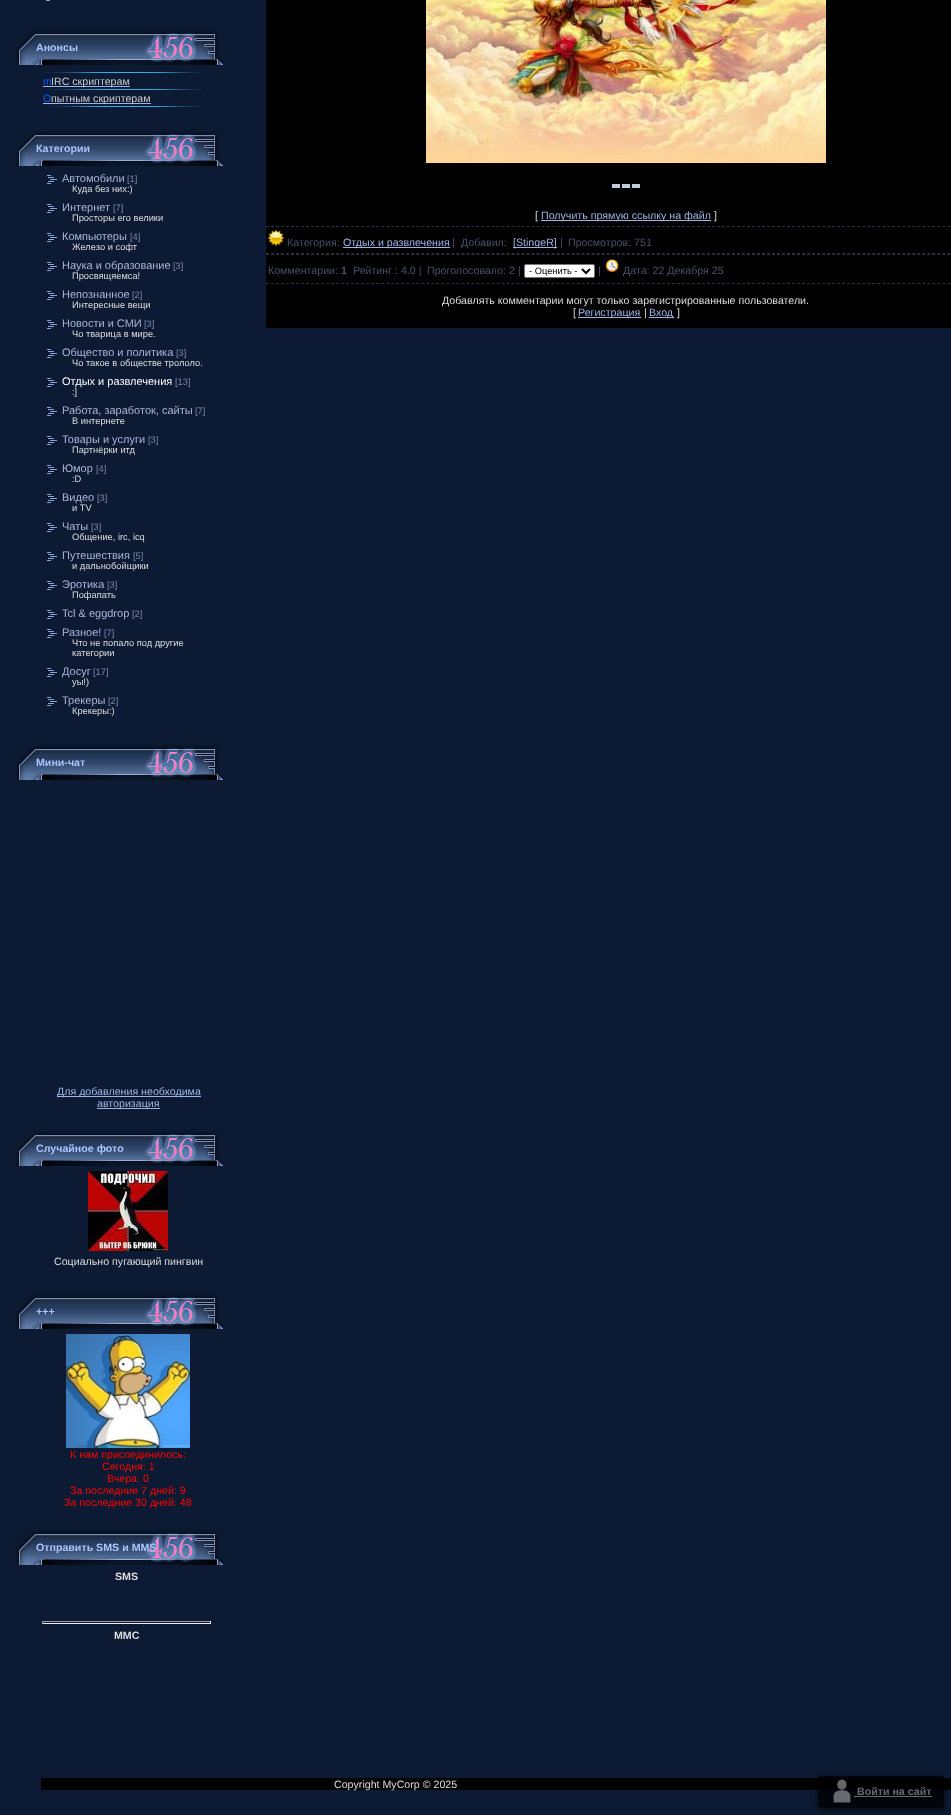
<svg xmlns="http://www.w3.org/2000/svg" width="951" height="1815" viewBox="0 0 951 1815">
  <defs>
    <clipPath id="clip1"><path d="M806 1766H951V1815H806ZM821 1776H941C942.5 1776 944 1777.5 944 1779V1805C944 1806.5 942.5 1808 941 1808H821C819.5 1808 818 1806.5 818 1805V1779C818 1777.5 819.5 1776 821 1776Z" clip-rule="evenodd"/></clipPath>
  </defs>
  <rect width="100%" height="100%" fill="#0c1b33"/>
  <path d="M46 0h4v1H46z" fill="#8ea4d7"/>
  <image x="16" y="29" width="214" height="36" href="img/1.png"/>
  <image x="43" y="72" width="160" height="1" href="img/2.png"/>
  <path d="M43 86h87v1H43z" fill="#9fb4e5"/>
  <image x="43" y="89" width="160" height="1" href="img/2.png"/>
  <path d="M43 103h108v1H43z" fill="#9fb4e5"/>
  <image x="43" y="106" width="160" height="1" href="img/2.png"/>
  <image x="16" y="130" width="214" height="36" href="img/1.png"/>
  <image x="47" y="175" width="10" height="9" href="img/3.png"/>
  <image x="47" y="204" width="10" height="9" href="img/3.png"/>
  <image x="47" y="233" width="10" height="9" href="img/3.png"/>
  <image x="47" y="262" width="10" height="9" href="img/3.png"/>
  <image x="47" y="291" width="10" height="9" href="img/3.png"/>
  <image x="47" y="320" width="10" height="9" href="img/3.png"/>
  <image x="47" y="349" width="10" height="9" href="img/3.png"/>
  <image x="47" y="378" width="10" height="9" href="img/3.png"/>
  <image x="47" y="407" width="10" height="9" href="img/3.png"/>
  <image x="47" y="436" width="10" height="9" href="img/3.png"/>
  <image x="47" y="465" width="10" height="9" href="img/3.png"/>
  <image x="47" y="494" width="10" height="9" href="img/3.png"/>
  <image x="47" y="523" width="10" height="9" href="img/3.png"/>
  <image x="47" y="552" width="10" height="9" href="img/3.png"/>
  <image x="47" y="581" width="10" height="9" href="img/3.png"/>
  <image x="47" y="610" width="10" height="9" href="img/3.png"/>
  <image x="47" y="629" width="10" height="9" href="img/3.png"/>
  <image x="47" y="668" width="10" height="9" href="img/3.png"/>
  <image x="47" y="697" width="10" height="9" href="img/3.png"/>
  <image x="16" y="744" width="214" height="36" href="img/1.png"/>
  <path d="M57 1096h144v1H57z" fill="#9fb4e5"/>
  <path d="M97 1108h63v1H97z" fill="#9fb4e5"/>
  <image x="16" y="1130" width="214" height="36" href="img/1.png"/>
  <image x="88" y="1171" width="80" height="80" href="img/4.png"/>
  <image x="16" y="1293" width="214" height="36" href="img/1.png"/>
  <image x="66" y="1334" width="124" height="114" href="img/5.png"/>
  <image x="16" y="1529" width="214" height="36" href="img/1.png"/>
  <path d="M42 1621h169v1H42z" fill="#9f9f9f"/>
  <path d="M210 1621h1v3H210z" fill="#eee"/>
  <path d="M42 1623h169v1H42z" fill="#eee"/>
  <path d="M42 1621h1v3H42z" fill="#9f9f9f"/>
  <path d="M266 0h685v328H266z" fill="#000"/>
  <image x="426" y="0" width="400" height="163" href="img/6.png"/>
  <image x="612" y="184" width="28" height="4" href="img/7.png"/>
  <path d="M541 220h170v1H541z" fill="#9fb4e5"/>
  <path d="M266 226.5H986" fill="none" stroke="#292e3b" stroke-dasharray="3 2.01"/>
  <path d="M266 253.5H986" fill="none" stroke="#292e3b" stroke-dasharray="3 2.01"/>
  <image x="268" y="230" width="16" height="16" href="img/8.png"/>
  <path d="M343 247h107v1H343z" fill="#9fb4e5"/>
  <path d="M513 247h44v1H513z" fill="#9fb4e5"/>
  <path d="M266 254.5H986" fill="none" stroke="#292e3b" stroke-dasharray="3 2.01"/>
  <path d="M266 283.5H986" fill="none" stroke="#292e3b" stroke-dasharray="3 2.01"/>
  <rect x="524.5" y="264.5" width="70" height="13" rx="1.5" fill="#fff" stroke="#767676"/>
  <path d="M582 269L586 273L590 269" fill="none" stroke="#000" stroke-width="2"/>
  <image x="605" y="259" width="14" height="13" href="img/9.png"/>
  <path d="M578 317h63v1H578z" fill="#9fb4e5"/>
  <path d="M649 317h25v1H649z" fill="#9fb4e5"/>
  <path d="M41 1778h910v12H41z" fill="#000"/>
  <g clip-path="url(#clip1)">
    <rect x="818" y="1778" width="126" height="32" rx="3" fill="#000000b3" filter="blur(3.5px)"/>
  </g>
  <rect x="818" y="1776" width="126" height="32" rx="3" fill="#000000cc"/>
  <image x="833" y="1779" width="18" height="24" href="img/10.png"/>
  <path d="M854 1796h78v1H854z" fill="#67696c"/>
  <text x="36" y="51" font-family="Liberation Sans" font-size="10.65" font-weight="bold" fill="#acc5ff">Анонсы</text>
  <text x="43" y="85" font-family="Liberation Sans" font-size="10.65" fill="#005aff">m</text>
  <text x="51" y="85" font-family="Liberation Sans" font-size="10.65" fill="#cacaca">IRC скриптерам</text>
  <text x="43" y="102" font-family="Liberation Sans" font-size="10.65" fill="#005aff">О</text>
  <text x="51" y="102" font-family="Liberation Sans" font-size="10.65" fill="#cacaca">пытным скриптерам</text>
  <text x="36" y="152" font-family="Liberation Sans" font-size="10.65" font-weight="bold" fill="#acc5ff">Категории</text>
  <text x="62" y="182" font-family="Liberation Sans" font-size="11" fill="#a9b5d8">Автомобили</text>
  <text x="127" y="182" font-family="Liberation Sans" font-size="9.3" fill="#7887ac">[1]</text>
  <text x="72" y="192" font-family="Liberation Sans" font-size="9.3" fill="#dcdcdc">Куда без них:)</text>
  <text x="62" y="211" font-family="Liberation Sans" font-size="11" fill="#a9b5d8">Интернет</text>
  <text x="113" y="211" font-family="Liberation Sans" font-size="9.3" fill="#7887ac">[7]</text>
  <text x="72" y="221" font-family="Liberation Sans" font-size="9.3" fill="#dcdcdc">Просторы его велики</text>
  <text x="62" y="240" font-family="Liberation Sans" font-size="11" fill="#a9b5d8">Компьютеры</text>
  <text x="130" y="240" font-family="Liberation Sans" font-size="9.3" fill="#7887ac">[4]</text>
  <text x="72" y="250" font-family="Liberation Sans" font-size="9.3" fill="#dcdcdc">Железо и софт</text>
  <text x="62" y="269" font-family="Liberation Sans" font-size="11" fill="#a9b5d8">Наука и образование</text>
  <text x="173" y="269" font-family="Liberation Sans" font-size="9.3" fill="#7887ac">[3]</text>
  <text x="72" y="279" font-family="Liberation Sans" font-size="9.3" fill="#dcdcdc">Просвящяемса!</text>
  <text x="62" y="298" font-family="Liberation Sans" font-size="11" fill="#a9b5d8">Непознанное</text>
  <text x="132" y="298" font-family="Liberation Sans" font-size="9.3" fill="#7887ac">[2]</text>
  <text x="72" y="308" font-family="Liberation Sans" font-size="9.3" fill="#dcdcdc">Интересные вещи</text>
  <text x="62" y="327" font-family="Liberation Sans" font-size="11" fill="#a9b5d8">Новости и СМИ</text>
  <text x="144" y="327" font-family="Liberation Sans" font-size="9.3" fill="#7887ac">[3]</text>
  <text x="72" y="337" font-family="Liberation Sans" font-size="9.3" fill="#dcdcdc">Чо тварица в мире.</text>
  <text x="62" y="356" font-family="Liberation Sans" font-size="11" fill="#a9b5d8">Общество и политика</text>
  <text x="176" y="356" font-family="Liberation Sans" font-size="9.3" fill="#7887ac">[3]</text>
  <text x="72" y="366" font-family="Liberation Sans" font-size="9.3" fill="#dcdcdc">Чо такое в обществе трололо.</text>
  <text x="62" y="385" font-family="Liberation Sans" font-size="11" fill="#fff">Отдых и развлечения</text>
  <text x="175" y="385" font-family="Liberation Sans" font-size="9.3" fill="#7887ac">[13]</text>
  <text x="72" y="395" font-family="Liberation Sans" font-size="9.3" fill="#dcdcdc">:]</text>
  <text x="62" y="414" font-family="Liberation Sans" font-size="11" fill="#a9b5d8">Работа, заработок, сайты</text>
  <text x="195" y="414" font-family="Liberation Sans" font-size="9.3" fill="#7887ac">[7]</text>
  <text x="72" y="424" font-family="Liberation Sans" font-size="9.3" fill="#dcdcdc">В интернете</text>
  <text x="62" y="443" font-family="Liberation Sans" font-size="11" fill="#a9b5d8">Товары и услуги</text>
  <text x="148" y="443" font-family="Liberation Sans" font-size="9.3" fill="#7887ac">[3]</text>
  <text x="72" y="453" font-family="Liberation Sans" font-size="9.3" fill="#dcdcdc">Партнёрки итд</text>
  <text x="62" y="472" font-family="Liberation Sans" font-size="11" fill="#a9b5d8">Юмор</text>
  <text x="96" y="472" font-family="Liberation Sans" font-size="9.3" fill="#7887ac">[4]</text>
  <text x="72" y="482" font-family="Liberation Sans" font-size="9.3" fill="#dcdcdc">:D</text>
  <text x="62" y="501" font-family="Liberation Sans" font-size="11" fill="#a9b5d8">Видео</text>
  <text x="97" y="501" font-family="Liberation Sans" font-size="9.3" fill="#7887ac">[3]</text>
  <text x="72" y="511" font-family="Liberation Sans" font-size="9.3" fill="#dcdcdc">и TV</text>
  <text x="62" y="530" font-family="Liberation Sans" font-size="11" fill="#a9b5d8">Чаты</text>
  <text x="91" y="530" font-family="Liberation Sans" font-size="9.3" fill="#7887ac">[3]</text>
  <text x="72" y="540" font-family="Liberation Sans" font-size="9.3" fill="#dcdcdc">Общение, irc, icq</text>
  <text x="62" y="559" font-family="Liberation Sans" font-size="11" fill="#a9b5d8">Путешествия</text>
  <text x="133" y="559" font-family="Liberation Sans" font-size="9.3" fill="#7887ac">[5]</text>
  <text x="72" y="569" font-family="Liberation Sans" font-size="9.3" fill="#dcdcdc">и дальнобойщики</text>
  <text x="62" y="588" font-family="Liberation Sans" font-size="11" fill="#a9b5d8">Эротика</text>
  <text x="107" y="588" font-family="Liberation Sans" font-size="9.3" fill="#7887ac">[3]</text>
  <text x="72" y="598" font-family="Liberation Sans" font-size="9.3" fill="#dcdcdc">Пофапать</text>
  <text x="62" y="617" font-family="Liberation Sans" font-size="11" fill="#a9b5d8">Tcl &amp; eggdrop</text>
  <text x="132" y="617" font-family="Liberation Sans" font-size="9.3" fill="#7887ac">[2]</text>
  <text x="62" y="636" font-family="Liberation Sans" font-size="11" fill="#a9b5d8">Разное!</text>
  <text x="104" y="636" font-family="Liberation Sans" font-size="9.3" fill="#7887ac">[7]</text>
  <g font-family="Liberation Sans" font-size="9.3" fill="#dcdcdc">
    <text x="72" y="646">Что не попало под другие</text>
    <text x="72" y="656">категории</text>
  </g>
  <text x="62" y="675" font-family="Liberation Sans" font-size="11" fill="#a9b5d8">Досуг</text>
  <text x="93" y="675" font-family="Liberation Sans" font-size="9.3" fill="#7887ac">[17]</text>
  <text x="72" y="685" font-family="Liberation Sans" font-size="9.3" fill="#dcdcdc">уы!)</text>
  <text x="62" y="704" font-family="Liberation Sans" font-size="11" fill="#a9b5d8">Трекеры</text>
  <text x="108" y="704" font-family="Liberation Sans" font-size="9.3" fill="#7887ac">[2]</text>
  <text x="72" y="714" font-family="Liberation Sans" font-size="9.3" fill="#dcdcdc">Крекеры:)</text>
  <text x="36" y="766" font-family="Liberation Sans" font-size="10.65" font-weight="bold" fill="#acc5ff">Мини-чат</text>
  <g font-family="Liberation Sans" font-size="10.65" fill="#9fb4e5">
    <text x="57" y="1095">Для добавления необходима</text>
    <text x="97" y="1107">авторизация</text>
  </g>
  <text x="36" y="1152" font-family="Liberation Sans" font-size="10.65" font-weight="bold" fill="#acc5ff">Случайное фото</text>
  <text x="54" y="1265" font-family="Liberation Sans" font-size="10.65" fill="#dcdcdc">Социально пугающий пингвин</text>
  <text x="36" y="1315" font-family="Liberation Sans" font-size="10.65" font-weight="bold" fill="#acc5ff">+++</text>
  <g font-family="Liberation Sans" font-size="10.65" fill="#f00">
    <text x="70" y="1458">К нам присоединилось:</text>
    <text x="102" y="1470">Сегодня: 1</text>
    <text x="107" y="1482">Вчера: 0</text>
    <text x="70" y="1494">За последние 7 дней: 9</text>
    <text x="64" y="1506">За последние 30 дней: 48</text>
  </g>
  <text x="36" y="1551" font-family="Liberation Sans" font-size="10.65" font-weight="bold" fill="#acc5ff">Отправить SMS и MMS</text>
  <g font-family="Liberation Sans" font-size="10.65" font-weight="bold" fill="#dcdcdc">
    <text x="115" y="1580">SMS</text>
    <text x="114" y="1639">ММС</text>
  </g>
  <text x="535" y="219" font-family="Liberation Sans" font-size="10.65" fill="#dcdcdc">[</text>
  <text x="541" y="219" font-family="Liberation Sans" font-size="10.65" fill="#9fb4e5">Получить прямую ссылку на файл</text>
  <text x="714" y="219" font-family="Liberation Sans" font-size="10.65" fill="#dcdcdc">]</text>
  <text x="287" y="246" font-family="Liberation Sans" font-size="10.65" fill="#485167">Категория:</text>
  <text x="343" y="246" font-family="Liberation Sans" font-size="10.65" fill="#9fb4e5">Отдых и развлечения</text>
  <g font-family="Liberation Sans" font-size="10.65" fill="#485167">
    <text x="452" y="246">|</text>
    <text x="461" y="246">Добавил:</text>
  </g>
  <text x="513" y="246" font-family="Liberation Sans" font-size="10.65" fill="#9fb4e5">[StingeR]</text>
  <g font-family="Liberation Sans" font-size="10.65" fill="#485167">
    <text x="560" y="246">|</text>
    <text x="568" y="246">Просмотров: 751</text>
    <text x="268" y="274">Комментарии:</text>
  </g>
  <text x="341" y="274" font-family="Liberation Sans" font-size="10.65" font-weight="bold" fill="#485167">1</text>
  <g font-family="Liberation Sans" font-size="10.65" fill="#485167">
    <text x="353" y="274">Рейтинг : 4.0 |</text>
    <text x="427" y="274">Проголосовало: 2 |</text>
  </g>
  <text x="529" y="274" font-family="Liberation Sans" font-size="9.3" fill="#000">- Оценить -</text>
  <g font-family="Liberation Sans" font-size="10.65" fill="#485167">
    <text x="598" y="274">|</text>
    <text x="623" y="274">Дата: 22 Декабря 25</text>
  </g>
  <g font-family="Liberation Sans" font-size="10.65" fill="#dcdcdc">
    <text x="442" y="304">Добавлять комментарии могут только зарегистрированные пользователи.</text>
    <text x="573" y="316">[</text>
  </g>
  <text x="578" y="316" font-family="Liberation Sans" font-size="10.65" fill="#9fb4e5">Регистрация</text>
  <text x="644" y="316" font-family="Liberation Sans" font-size="10.65" fill="#dcdcdc">|</text>
  <text x="649" y="316" font-family="Liberation Sans" font-size="10.65" fill="#9fb4e5">Вход</text>
  <g font-family="Liberation Sans" font-size="10.65" fill="#dcdcdc">
    <text x="677" y="316">]</text>
    <text x="334" y="1788">Copyright MyCorp © 2025</text>
  </g>
  <text x="857" y="1795" font-family="Liberation Sans" font-size="10.65" font-weight="bold" fill="#67696b">Войти на сайт</text>
</svg>
